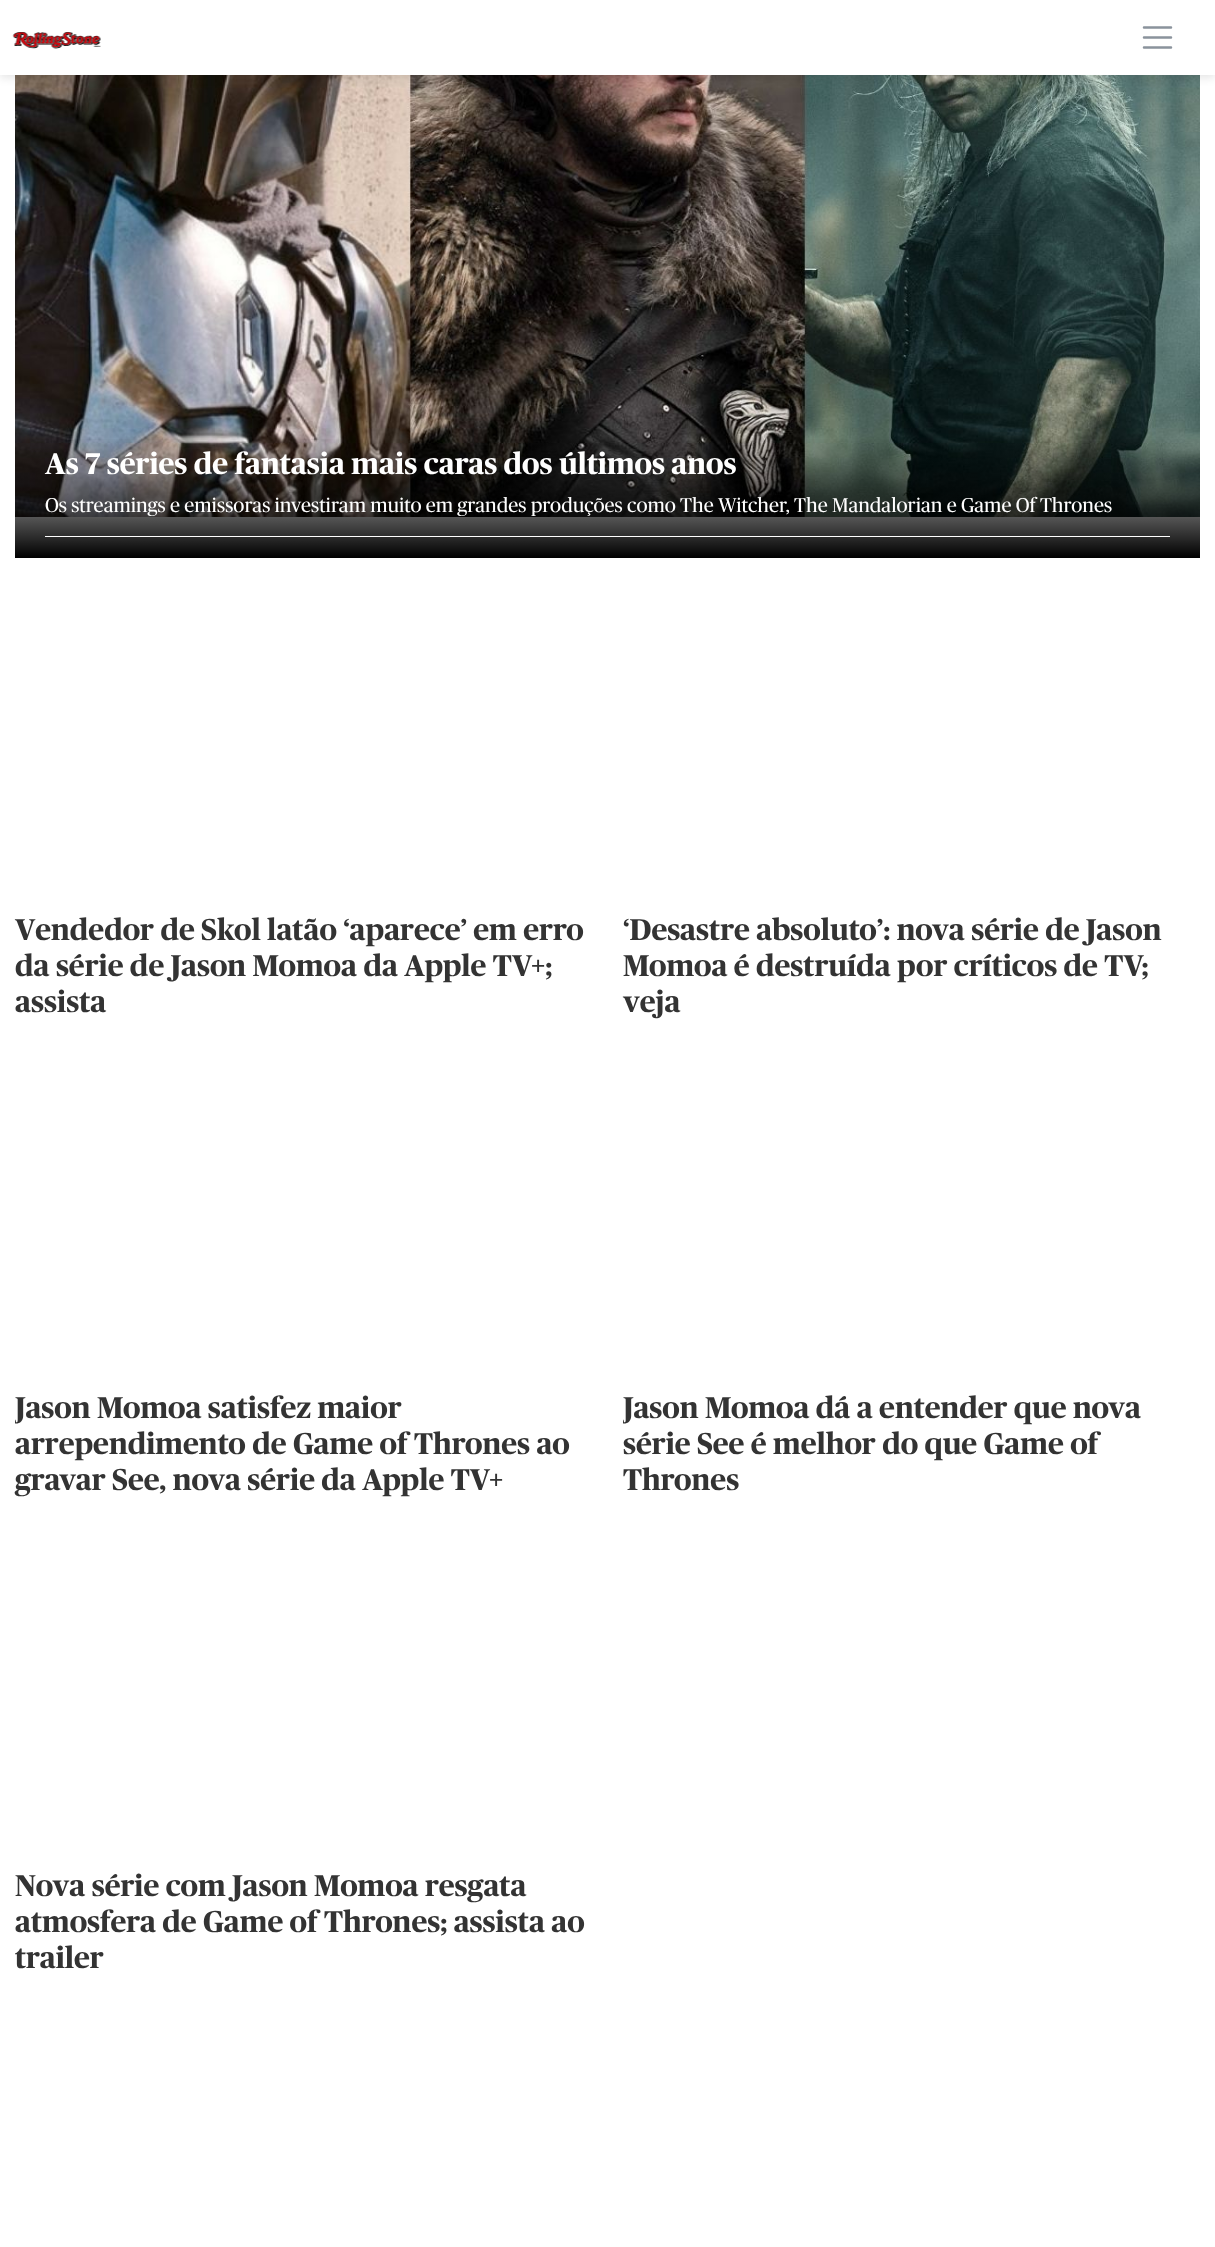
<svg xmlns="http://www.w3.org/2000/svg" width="1215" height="2247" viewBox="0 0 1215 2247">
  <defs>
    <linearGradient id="g1" gradientUnits="userSpaceOnUse" x1="608" y1="436" x2="608" y2="558"><stop offset="0" stop-color="#000" stop-opacity="0"/><stop offset="1" stop-color="#000"/></linearGradient>
    <clipPath id="clip1"><path d="M15 1391h578v118H15z"/></clipPath>
    <clipPath id="clip2"><path d="M623 1391h577v118H623z"/></clipPath>
  </defs>
  <rect width="100%" height="100%" fill="#fff"/>
  <image x="15" y="75" width="1185" height="442" href="img/2.png"/>
  <path d="M0 3h1215v75H0z" fill="#0000001a" filter="blur(4px)"/>
  <path d="M0 0h1215v75H0z" fill="#fff"/>
  <image x="12" y="32" width="89" height="17" href="img/1.png"/>
  <path d="M1144 27.5H1171M1144 37.5H1171M1144 47.5H1171" fill="none" stroke="#8a939c" stroke-width="2.5" stroke-linecap="round"/>
  <path d="M15 439h1185v119H15z" fill="url(#g1)"/>
  <path d="M45 536h1125v1H45z" fill="#fff"/>
  <text x="45" y="474" font-family="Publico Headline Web" font-size="30" font-weight="bold" fill="#fff">As 7 séries de fantasia mais caras dos últimos anos</text>
  <text x="45" y="512" font-family="Publico Headline Web" font-size="20" fill="#fff">Os streamings e emissoras investiram muito em grandes produções como The Witcher, The Mandalorian e Game Of Thrones</text>
  <g font-family="Publico Headline Web" font-size="30" font-weight="bold" fill="#333">
    <text x="15" y="940">Vendedor de Skol latão ‘aparece’ em erro</text>
    <text x="15" y="976">da série de Jason Momoa da Apple TV+;</text>
    <text x="15" y="1012">assista</text>
    <text x="623" y="940">‘Desastre absoluto’: nova série de Jason</text>
    <text x="623" y="976">Momoa é destruída por críticos de TV;</text>
    <text x="623" y="1012">veja</text>
  </g>
  <g clip-path="url(#clip1)">
    <text x="15" y="1418" font-family="Publico Headline Web" font-size="30" font-weight="bold" fill="#333">Jason Momoa satisfez maior</text>
  </g>
  <g font-family="Publico Headline Web" font-size="30" font-weight="bold" fill="#333">
    <text x="15" y="1454">arrependimento de Game of Thrones ao</text>
    <text x="15" y="1490">gravar See, nova série da Apple TV+</text>
  </g>
  <g clip-path="url(#clip2)">
    <text x="623" y="1418" font-family="Publico Headline Web" font-size="30" font-weight="bold" fill="#333">Jason Momoa dá a entender que nova</text>
  </g>
  <g font-family="Publico Headline Web" font-size="30" font-weight="bold" fill="#333">
    <text x="623" y="1454">série See é melhor do que Game of</text>
    <text x="623" y="1490">Thrones</text>
    <text x="15" y="1896">Nova série com Jason Momoa resgata</text>
    <text x="15" y="1932">atmosfera de Game of Thrones; assista ao</text>
    <text x="15" y="1968">trailer</text>
  </g>
</svg>
